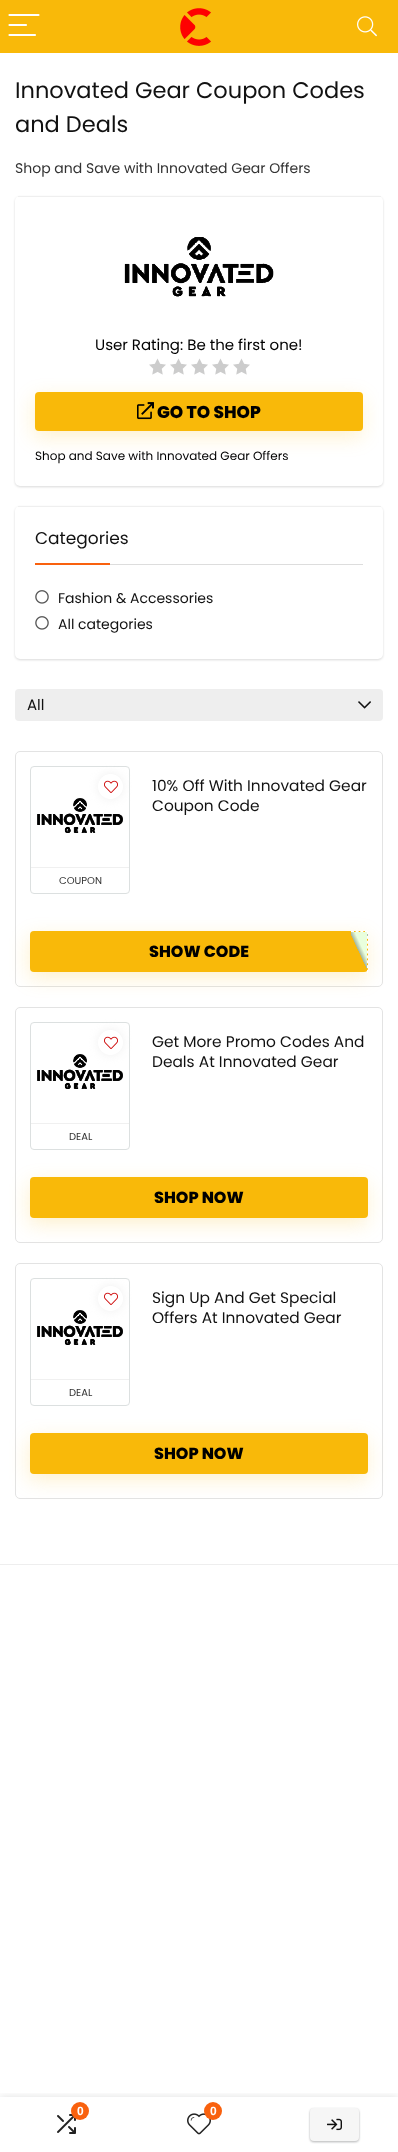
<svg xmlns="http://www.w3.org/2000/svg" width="398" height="2152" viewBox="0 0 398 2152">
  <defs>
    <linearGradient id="g1" gradientUnits="userSpaceOnUse" x1="345" y1="959" x2="373" y2="946"><stop offset="0" stop-color="#fff" stop-opacity="0"/><stop offset="0.5" stop-color="#a6b79d" stop-opacity="0"/><stop offset="0.51" stop-color="#a6b79d"/><stop offset="0.66" stop-color="#e9ffdd"/></linearGradient>
    <linearGradient id="g2" gradientUnits="userSpaceOnUse" x1="361" y1="959" x2="389" y2="946"><stop offset="0" stop-color="#fff" stop-opacity="0"/><stop offset="0.5" stop-color="#a6b79d" stop-opacity="0"/><stop offset="0.51" stop-color="#a6b79d"/><stop offset="0.66" stop-color="#e9ffdd"/></linearGradient>
    <clipPath id="clip1"><path d="M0 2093h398v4H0z"/></clipPath>
  </defs>
  <rect width="100%" height="100%" fill="#fff"/>
  <rect x="15" y="197" width="368" height="290" rx="5" fill="#00000026" filter="blur(1px)"/>
  <rect x="15" y="196" width="368" height="290" rx="5" fill="#fff"/>
  <path d="M18 196h363v1H18z" fill="#efefef"/>
  <image x="124" y="237" width="150" height="60" href="img/1.png"/>
  <image x="149" y="358" width="17" height="17" href="img/2.png"/>
  <image x="170" y="358" width="17" height="17" href="img/2.png"/>
  <image x="191" y="358" width="17" height="17" href="img/2.png"/>
  <image x="212" y="358" width="17" height="17" href="img/2.png"/>
  <image x="233" y="358" width="17" height="17" href="img/2.png"/>
  <rect x="34" y="398" width="328" height="39" rx="4" fill="#f9b90933" filter="blur(9.5px)"/>
  <rect x="35" y="392" width="328" height="39" rx="4" fill="#f9b909"/>
  <image x="137" y="402" width="17" height="18" href="img/3.png"/>
  <rect x="15" y="507" width="368" height="153" rx="5" fill="#00000026" filter="blur(1px)"/>
  <rect x="15" y="506" width="368" height="153" rx="5" fill="#fff"/>
  <path d="M18 506h363v1H18z" fill="#efefef"/>
  <path d="M110 564h253v1H110z" fill="#ddd"/>
  <path d="M35 563h75v2H35z" fill="#f9610e"/>
  <image x="35" y="590" width="14" height="14" href="img/4.png"/>
  <image x="35" y="616" width="14" height="14" href="img/4.png"/>
  <rect x="15" y="689" width="368" height="32" rx="4" fill="#eee"/>
  <image x="358" y="701" width="13" height="8" href="img/5.png"/>
  <rect x="15.5" y="751.5" width="367" height="235" rx="4.5" fill="none" stroke="#e3e3e3"/>
  <rect x="30.5" y="766.5" width="99" height="127" rx="3.5" fill="none" stroke="#dce0e0"/>
  <rect x="98" y="774" width="25" height="25" rx="12.5" fill="#efefef" filter="blur(5px)"/>
  <circle cx="110.5" cy="786.5" r="12.5" fill="#fff"/>
  <image x="104" y="780" width="14" height="13" href="img/6.png"/>
  <image x="37" y="798" width="86" height="35" href="img/7.png"/>
  <path d="M31 867h98v1H31z" fill="#f0f0f0"/>
  <rect x="29" y="937" width="338" height="41" rx="4" fill="#f9b90933" filter="blur(9.5px)"/>
  <rect x="30" y="931" width="338" height="41" rx="4" fill="#f9b909"/>
  <path d="M351 932h16v37H351z" fill="url(#g1)"/>
  <path d="M367 932h1v4H367z" fill="url(#g2)"/>
  <path d="M351 931.5H368" fill="none" stroke="#fff" stroke-dasharray="3 1.67"/>
  <path d="M367.5 931V973" fill="none" stroke="#fff" stroke-dasharray="3 1.88"/>
  <rect x="15.5" y="1007.5" width="367" height="235" rx="4.5" fill="none" stroke="#e3e3e3"/>
  <rect x="30.5" y="1022.5" width="99" height="127" rx="3.5" fill="none" stroke="#dce0e0"/>
  <rect x="98" y="1030" width="25" height="25" rx="12.5" fill="#efefef" filter="blur(5px)"/>
  <circle cx="110.5" cy="1042.5" r="12.5" fill="#fff"/>
  <image x="104" y="1036" width="14" height="13" href="img/6.png"/>
  <image x="37" y="1054" width="86" height="35" href="img/7.png"/>
  <path d="M31 1123h98v1H31z" fill="#f0f0f0"/>
  <rect x="29" y="1183" width="338" height="41" rx="4" fill="#f9b90933" filter="blur(9.5px)"/>
  <rect x="30" y="1177" width="338" height="41" rx="4" fill="#f9b909"/>
  <rect x="15.5" y="1263.5" width="367" height="235" rx="4.5" fill="none" stroke="#e3e3e3"/>
  <rect x="30.5" y="1278.5" width="99" height="127" rx="3.5" fill="none" stroke="#dce0e0"/>
  <rect x="98" y="1286" width="25" height="25" rx="12.5" fill="#efefef" filter="blur(5px)"/>
  <circle cx="110.5" cy="1298.5" r="12.5" fill="#fff"/>
  <image x="104" y="1292" width="14" height="13" href="img/6.png"/>
  <image x="37" y="1310" width="86" height="35" href="img/7.png"/>
  <path d="M31 1379h98v1H31z" fill="#f0f0f0"/>
  <rect x="29" y="1439" width="338" height="41" rx="4" fill="#f9b90933" filter="blur(9.5px)"/>
  <rect x="30" y="1433" width="338" height="41" rx="4" fill="#f9b909"/>
  <path d="M0 1564h398v1H0z" fill="#eee"/>
  <path d="M0 0h398v53H0z" fill="#f9b909"/>
  <path d="M9.5 15H38.5M9.5 25H26M9.5 35H35" fill="none" stroke="#fff" stroke-width="2.2" stroke-linecap="round"/>
  <image x="180" y="8" width="31" height="38" href="img/8.png"/>
  <image x="357" y="16" width="20" height="21" href="img/9.png"/>
  <g clip-path="url(#clip1)">
    <path d="M0 2097h398v55H0z" fill="#0000001f" filter="blur(4.5px)"/>
  </g>
  <image x="57" y="2114" width="19" height="20" href="img/10.png"/>
  <circle cx="80" cy="2111" r="9" fill="#f9610e"/>
  <image x="187" y="2113" width="24" height="22" href="img/11.png"/>
  <circle cx="213" cy="2111" r="9" fill="#f9610e"/>
  <rect x="310" y="2109" width="49" height="33" rx="4" fill="#00000014" filter="blur(1px)"/>
  <rect x="310" y="2109" width="49" height="33" rx="4" fill="#3c40434d" filter="blur(1px)"/>
  <rect x="310" y="2108" width="49" height="33" rx="4" fill="#f6f6f6"/>
  <image x="327" y="2118" width="15" height="13" href="img/12.png"/>
  <g font-family="Poppins" font-size="22.5" fill="#111">
    <text x="15" y="98">Innovated Gear Coupon Codes</text>
    <text x="15" y="132">and Deals</text>
  </g>
  <text x="15" y="173" font-family="Poppins" font-size="14" fill="#333">Shop and Save with Innovated Gear Offers</text>
  <text x="95" y="350" font-family="Poppins" font-size="15" fill="#000">User Rating: Be the first one!</text>
  <text x="157" y="418" font-family="Poppins" font-size="17" font-weight="800" fill="#000">GO TO SHOP</text>
  <text x="35" y="460" font-family="Poppins" font-size="12" fill="#000">Shop and Save with Innovated Gear Offers</text>
  <text x="35" y="544" font-family="Poppins" font-size="17" fill="#111">Categories</text>
  <g font-family="Poppins" font-size="14" fill="#111">
    <text x="58" y="603">Fashion &amp; Accessories</text>
    <text x="58" y="629">All categories</text>
  </g>
  <text x="27" y="710" font-family="Poppins" font-size="15" fill="#111">All</text>
  <g font-family="Poppins" font-size="15.4" fill="#111">
    <text x="152" y="791">10% Off With Innovated Gear</text>
    <text x="152" y="811">Coupon Code</text>
  </g>
  <text x="59" y="884" font-family="Poppins" font-size="10" fill="#333">COUPON</text>
  <text x="149" y="957" font-family="Poppins" font-size="16" font-weight="800" fill="#000">SHOW CODE</text>
  <g font-family="Poppins" font-size="15.4" fill="#111">
    <text x="152" y="1047">Get More Promo Codes And</text>
    <text x="152" y="1067">Deals At Innovated Gear</text>
  </g>
  <text x="69" y="1140" font-family="Poppins" font-size="10" fill="#333">DEAL</text>
  <text x="154" y="1203" font-family="Poppins" font-size="16" font-weight="800" fill="#000">SHOP NOW</text>
  <g font-family="Poppins" font-size="15.4" fill="#111">
    <text x="152" y="1303">Sign Up And Get Special</text>
    <text x="152" y="1323">Offers At Innovated Gear</text>
  </g>
  <text x="69" y="1396" font-family="Poppins" font-size="10" fill="#333">DEAL</text>
  <text x="154" y="1459" font-family="Poppins" font-size="16" font-weight="800" fill="#000">SHOP NOW</text>
  <g font-family="Liberation Sans" font-size="12" font-weight="bold" fill="#fff">
    <text x="77" y="2115">0</text>
    <text x="210" y="2115">0</text>
  </g>
</svg>
